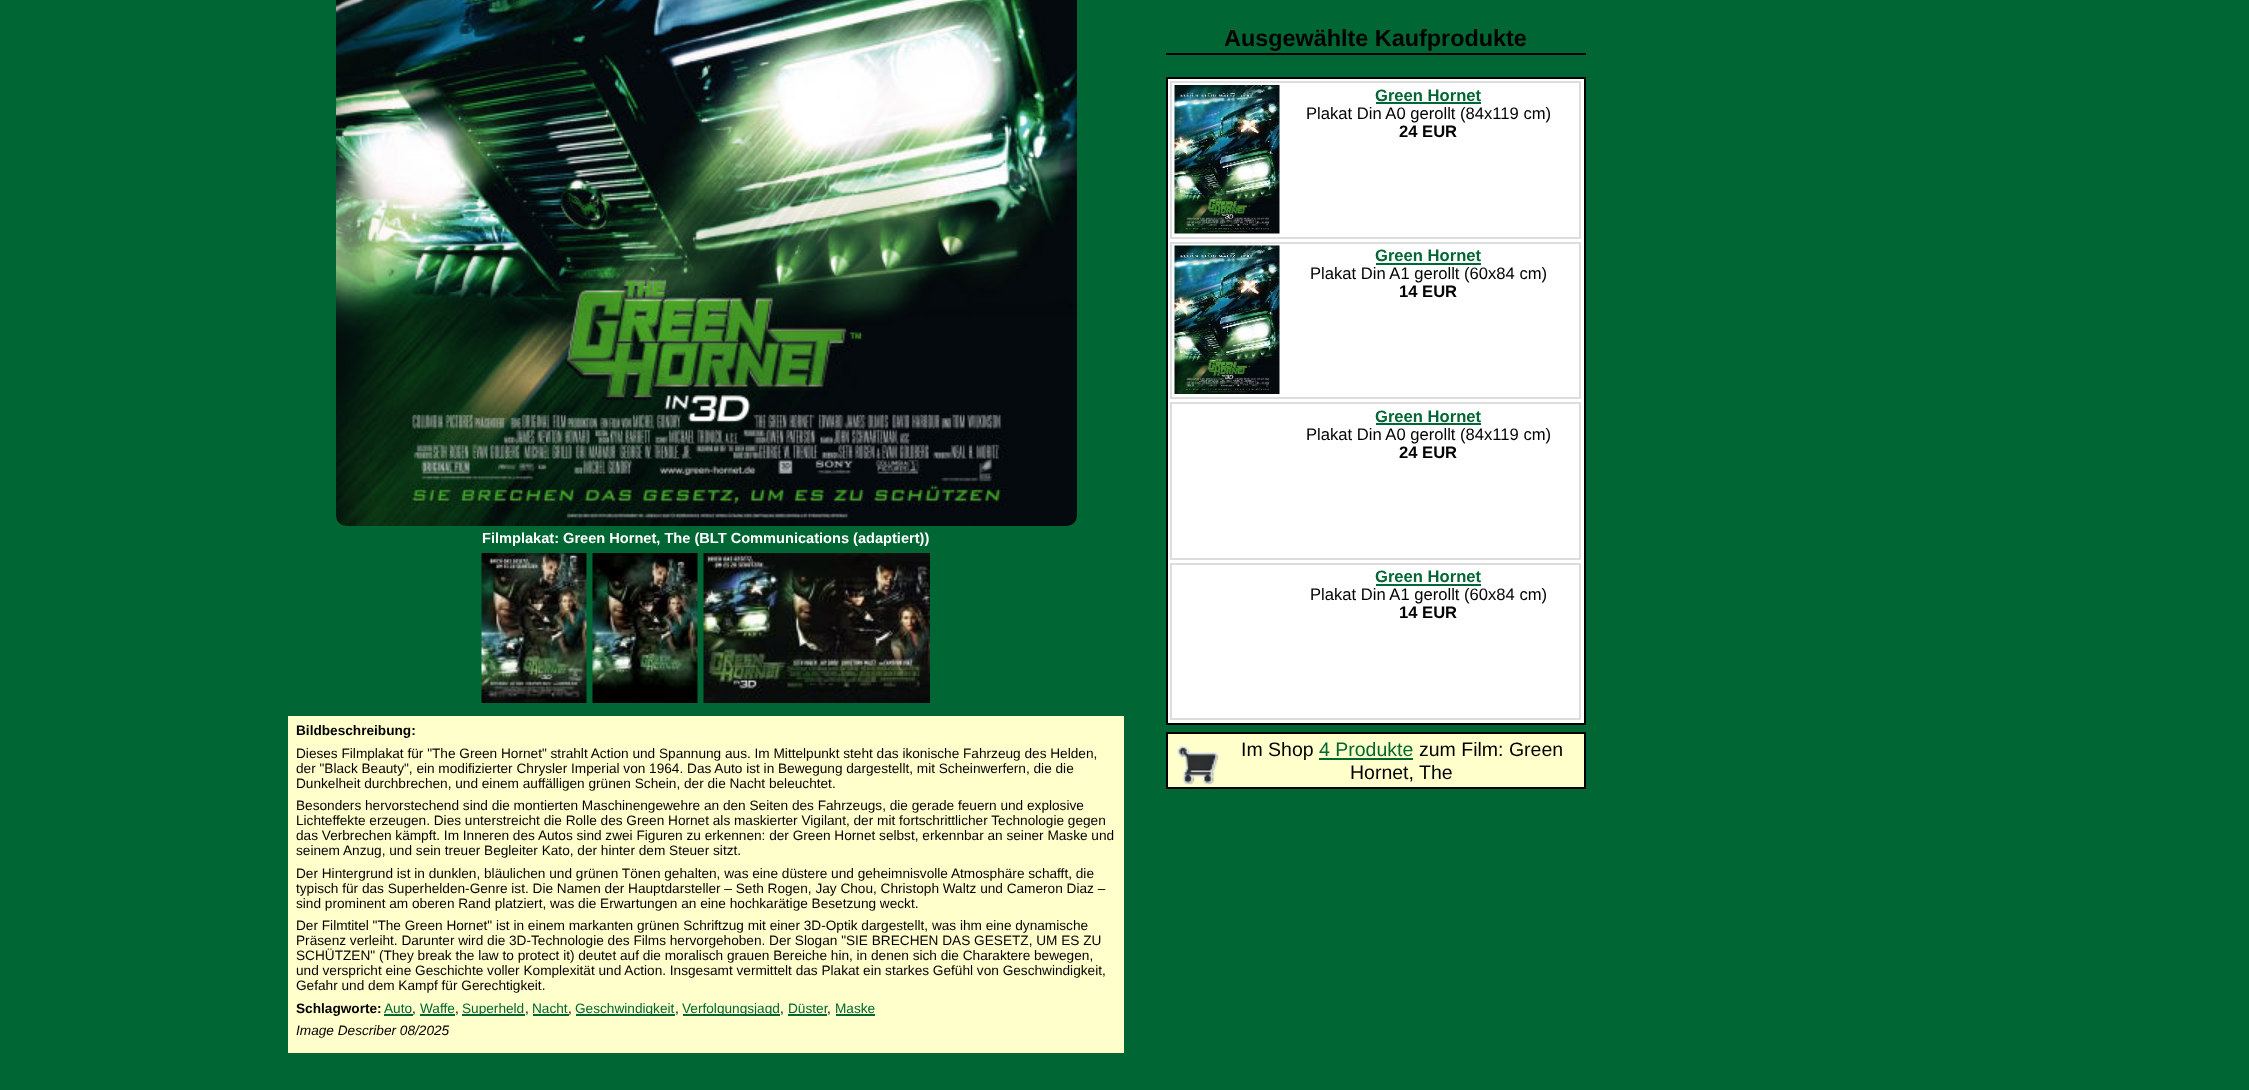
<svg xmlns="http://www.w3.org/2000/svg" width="2249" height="1090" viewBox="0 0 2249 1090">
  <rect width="100%" height="100%" fill="#063"/>
  <image x="336" y="0" width="741" height="526" href="img/1.png"/>
  <path d="M1166 53h420v2H1166z" fill="#000"/>
  <path d="M1167 78h418v646H1167z" fill="#fff" stroke="#000" stroke-width="2"/>
  <path d="M1171 82h409v156H1171z" fill="none" stroke="#ddd" stroke-width="2"/>
  <image x="1174" y="85" width="106" height="149" href="img/2.png"/>
  <path d="M1376 102h105v2H1376z" fill="#063"/>
  <path d="M1171 243h409v155H1171z" fill="none" stroke="#ddd" stroke-width="2"/>
  <image x="1174" y="245" width="106" height="149" href="img/3.png"/>
  <path d="M1376 263h105v2H1376z" fill="#063"/>
  <path d="M1171 403h409v156H1171z" fill="none" stroke="#ddd" stroke-width="2"/>
  <path d="M1376 423h105v2H1376z" fill="#063"/>
  <path d="M1171 564h409v155H1171z" fill="none" stroke="#ddd" stroke-width="2"/>
  <path d="M1376 584h105v2H1376z" fill="#063"/>
  <path d="M1167 733h418v55H1167z" fill="#ffc" stroke="#000" stroke-width="2"/>
  <image x="1177" y="746" width="42" height="39" href="img/4.png"/>
  <path d="M1319 758h94v2H1319z" fill="#063"/>
  <image x="481" y="553" width="106" height="150" href="img/5.png"/>
  <image x="592" y="553" width="106" height="150" href="img/6.png"/>
  <image x="703" y="553" width="227" height="150" href="img/7.png"/>
  <path d="M288 716h836v337H288z" fill="#ffc"/>
  <path d="M384 1014h29v2H384z" fill="#063"/>
  <path d="M420 1014h35v2H420z" fill="#063"/>
  <path d="M462 1014h63v2H462z" fill="#063"/>
  <path d="M533 1014h36v2H533z" fill="#063"/>
  <path d="M576 1014h99v2H576z" fill="#063"/>
  <path d="M683 1014h97v2H683z" fill="#063"/>
  <path d="M788 1014h39v2H788z" fill="#063"/>
  <path d="M836 1014h39v2H836z" fill="#063"/>
  <text x="482" y="543" font-family="Liberation Sans" font-size="14.6" font-weight="bold" fill="#fff">Filmplakat: Green Hornet, The (BLT Communications (adaptiert))</text>
  <text x="1224" y="46" font-family="Liberation Sans" font-size="23.4" font-weight="bold" fill="#000">Ausgewählte Kaufprodukte</text>
  <text x="1375" y="101" font-family="Liberation Sans" font-size="16.6" font-weight="bold" fill="#063">Green Hornet</text>
  <text x="1306" y="119" font-family="Liberation Sans" font-size="16.6" fill="#000">Plakat Din A0 gerollt (84x119 cm)</text>
  <text x="1399" y="137" font-family="Liberation Sans" font-size="16.6" font-weight="bold" fill="#000">24 EUR</text>
  <text x="1375" y="261" font-family="Liberation Sans" font-size="16.6" font-weight="bold" fill="#063">Green Hornet</text>
  <text x="1310" y="279" font-family="Liberation Sans" font-size="16.6" fill="#000">Plakat Din A1 gerollt (60x84 cm)</text>
  <text x="1399" y="297" font-family="Liberation Sans" font-size="16.6" font-weight="bold" fill="#000">14 EUR</text>
  <text x="1375" y="422" font-family="Liberation Sans" font-size="16.6" font-weight="bold" fill="#063">Green Hornet</text>
  <text x="1306" y="440" font-family="Liberation Sans" font-size="16.6" fill="#000">Plakat Din A0 gerollt (84x119 cm)</text>
  <text x="1399" y="458" font-family="Liberation Sans" font-size="16.6" font-weight="bold" fill="#000">24 EUR</text>
  <text x="1375" y="582" font-family="Liberation Sans" font-size="16.6" font-weight="bold" fill="#063">Green Hornet</text>
  <text x="1310" y="600" font-family="Liberation Sans" font-size="16.6" fill="#000">Plakat Din A1 gerollt (60x84 cm)</text>
  <text x="1399" y="618" font-family="Liberation Sans" font-size="16.6" font-weight="bold" fill="#000">14 EUR</text>
  <text x="1241" y="756" font-family="Liberation Sans" font-size="19.5" fill="#000">Im Shop</text>
  <text x="1319" y="756" font-family="Liberation Sans" font-size="19.5" fill="#063">4 Produkte</text>
  <g font-family="Liberation Sans" font-size="19.5" fill="#000">
    <text x="1419" y="756">zum Film: Green</text>
    <text x="1350" y="779">Hornet, The</text>
  </g>
  <text x="296" y="735" font-family="Liberation Sans" font-size="13.65" font-weight="bold" fill="#000">Bildbeschreibung:</text>
  <g font-family="Liberation Sans" font-size="13.65" fill="#000">
    <text x="296" y="758">Dieses Filmplakat für "The Green Hornet" strahlt Action und Spannung aus. Im Mittelpunkt steht das ikonische Fahrzeug des Helden,</text>
    <text x="296" y="773">der "Black Beauty", ein modifizierter Chrysler Imperial von 1964. Das Auto ist in Bewegung dargestellt, mit Scheinwerfern, die die</text>
    <text x="296" y="788">Dunkelheit durchbrechen, und einem auffälligen grünen Schein, der die Nacht beleuchtet.</text>
    <text x="296" y="810">Besonders hervorstechend sind die montierten Maschinengewehre an den Seiten des Fahrzeugs, die gerade feuern und explosive</text>
    <text x="296" y="825">Lichteffekte erzeugen. Dies unterstreicht die Rolle des Green Hornet als maskierter Vigilant, der mit fortschrittlicher Technologie gegen</text>
    <text x="296" y="840">das Verbrechen kämpft. Im Inneren des Autos sind zwei Figuren zu erkennen: der Green Hornet selbst, erkennbar an seiner Maske und</text>
    <text x="296" y="855">seinem Anzug, und sein treuer Begleiter Kato, der hinter dem Steuer sitzt.</text>
    <text x="296" y="878">Der Hintergrund ist in dunklen, bläulichen und grünen Tönen gehalten, was eine düstere und geheimnisvolle Atmosphäre schafft, die</text>
    <text x="296" y="893">typisch für das Superhelden-Genre ist. Die Namen der Hauptdarsteller – Seth Rogen, Jay Chou, Christoph Waltz und Cameron Diaz –</text>
    <text x="296" y="908">sind prominent am oberen Rand platziert, was die Erwartungen an eine hochkarätige Besetzung weckt.</text>
    <text x="296" y="930">Der Filmtitel "The Green Hornet" ist in einem markanten grünen Schriftzug mit einer 3D-Optik dargestellt, was ihm eine dynamische</text>
    <text x="296" y="945">Präsenz verleiht. Darunter wird die 3D-Technologie des Films hervorgehoben. Der Slogan "SIE BRECHEN DAS GESETZ, UM ES ZU</text>
    <text x="296" y="960">SCHÜTZEN" (They break the law to protect it) deutet auf die moralisch grauen Bereiche hin, in denen sich die Charaktere bewegen,</text>
    <text x="296" y="975">und verspricht eine Geschichte voller Komplexität und Action. Insgesamt vermittelt das Plakat ein starkes Gefühl von Geschwindigkeit,</text>
    <text x="296" y="990">Gefahr und dem Kampf für Gerechtigkeit.</text>
  </g>
  <text x="296" y="1013" font-family="Liberation Sans" font-size="13.65" font-weight="bold" fill="#000">Schlagworte:</text>
  <text x="384" y="1013" font-family="Liberation Sans" font-size="13.65" fill="#063">Auto</text>
  <text x="412" y="1013" font-family="Liberation Sans" font-size="13.65" fill="#000">,</text>
  <text x="420" y="1013" font-family="Liberation Sans" font-size="13.65" fill="#063">Waffe</text>
  <text x="455" y="1013" font-family="Liberation Sans" font-size="13.65" fill="#000">,</text>
  <text x="462" y="1013" font-family="Liberation Sans" font-size="13.65" fill="#063">Superheld</text>
  <text x="525" y="1013" font-family="Liberation Sans" font-size="13.65" fill="#000">,</text>
  <text x="532" y="1013" font-family="Liberation Sans" font-size="13.65" fill="#063">Nacht</text>
  <text x="568" y="1013" font-family="Liberation Sans" font-size="13.65" fill="#000">,</text>
  <text x="575" y="1013" font-family="Liberation Sans" font-size="13.65" fill="#063">Geschwindigkeit</text>
  <text x="675" y="1013" font-family="Liberation Sans" font-size="13.65" fill="#000">,</text>
  <text x="682" y="1013" font-family="Liberation Sans" font-size="13.65" fill="#063">Verfolgungsjagd</text>
  <text x="780" y="1013" font-family="Liberation Sans" font-size="13.65" fill="#000">,</text>
  <text x="788" y="1013" font-family="Liberation Sans" font-size="13.65" fill="#063">Düster</text>
  <text x="827" y="1013" font-family="Liberation Sans" font-size="13.65" fill="#000">,</text>
  <text x="835" y="1013" font-family="Liberation Sans" font-size="13.65" fill="#063">Maske</text>
  <text x="296" y="1035" font-family="Liberation Sans" font-size="13.65" font-style="italic" fill="#000">Image Describer 08/2025</text>
</svg>
